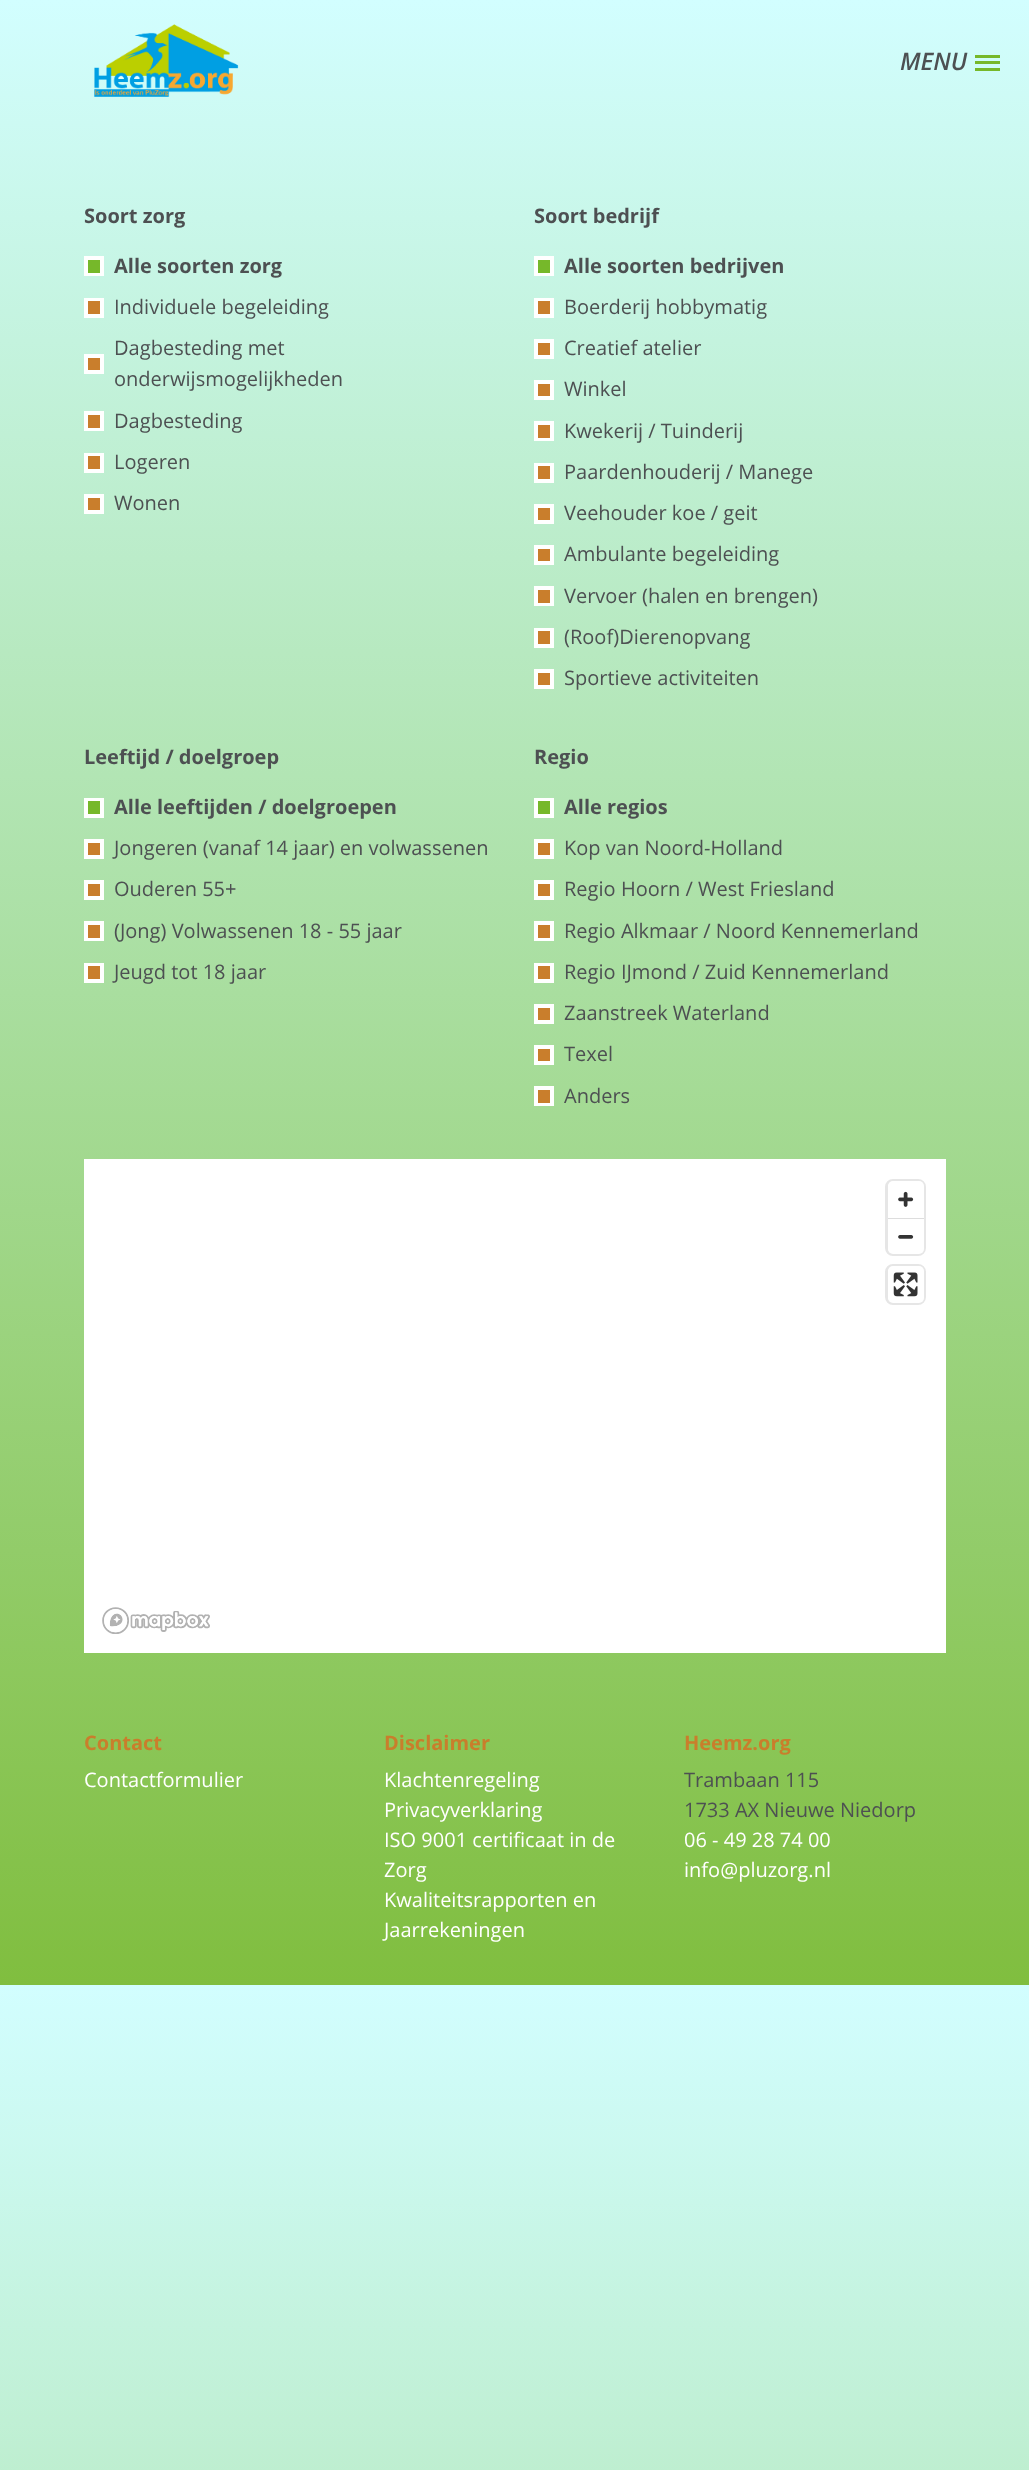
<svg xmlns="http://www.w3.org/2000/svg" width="1029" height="2470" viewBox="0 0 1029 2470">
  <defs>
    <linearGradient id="g1" gradientUnits="userSpaceOnUse" x1="515" y1="0" x2="515" y2="1985"><stop offset="0" stop-color="#d2feff"/><stop offset="1" stop-color="#80be3f"/></linearGradient>
    <linearGradient id="g2" gradientUnits="userSpaceOnUse" x1="515" y1="1985" x2="515" y2="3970"><stop offset="0" stop-color="#d2feff"/><stop offset="1" stop-color="#80be3f"/></linearGradient>
  </defs>
  <rect width="100%" height="100%" fill="#fff"/>
  <path d="M0 0h1029v1985H0z" fill="url(#g1)"/>
  <path d="M0 1985h1029v485H0z" fill="url(#g2)"/>
  <image x="94" y="24" width="145" height="73" href="img/1.png"/>
  <path d="M975 55h25v3H975z" fill="#76b82a"/>
  <path d="M975 61h25v3H975z" fill="#76b82a"/>
  <path d="M975 68h25v3H975z" fill="#76b82a"/>
  <path d="M84 256h20v20H84z" fill="#fff"/>
  <path d="M88 260h12v13H88z" fill="#76b82a"/>
  <path d="M84 298h20v20H84z" fill="#fff"/>
  <path d="M88 301h12v13H88z" fill="#c97e2c"/>
  <path d="M84 354h20v20H84z" fill="#fff"/>
  <path d="M88 358h12v12H88z" fill="#c97e2c"/>
  <path d="M84 411h20v20H84z" fill="#fff"/>
  <path d="M88 415h12v13H88z" fill="#c97e2c"/>
  <path d="M84 453h20v20H84z" fill="#fff"/>
  <path d="M88 456h12v13H88z" fill="#c97e2c"/>
  <path d="M84 494h20v20H84z" fill="#fff"/>
  <path d="M88 498h12v12H88z" fill="#c97e2c"/>
  <path d="M534 256h20v20H534z" fill="#fff"/>
  <path d="M538 260h12v13H538z" fill="#76b82a"/>
  <path d="M534 298h20v20H534z" fill="#fff"/>
  <path d="M538 301h12v13H538z" fill="#c97e2c"/>
  <path d="M534 339h20v20H534z" fill="#fff"/>
  <path d="M538 343h12v12H538z" fill="#c97e2c"/>
  <path d="M534 380h20v20H534z" fill="#fff"/>
  <path d="M538 384h12v12H538z" fill="#c97e2c"/>
  <path d="M534 421h20v20H534z" fill="#fff"/>
  <path d="M538 425h12v13H538z" fill="#c97e2c"/>
  <path d="M534 463h20v20H534z" fill="#fff"/>
  <path d="M538 466h12v13H538z" fill="#c97e2c"/>
  <path d="M534 504h20v20H534z" fill="#fff"/>
  <path d="M538 508h12v12H538z" fill="#c97e2c"/>
  <path d="M534 545h20v20H534z" fill="#fff"/>
  <path d="M538 549h12v12H538z" fill="#c97e2c"/>
  <path d="M534 586h20v20H534z" fill="#fff"/>
  <path d="M538 590h12v13H538z" fill="#c97e2c"/>
  <path d="M534 628h20v20H534z" fill="#fff"/>
  <path d="M538 631h12v13H538z" fill="#c97e2c"/>
  <path d="M534 669h20v20H534z" fill="#fff"/>
  <path d="M538 673h12v12H538z" fill="#c97e2c"/>
  <path d="M84 798h20v20H84z" fill="#fff"/>
  <path d="M88 801h12v13H88z" fill="#76b82a"/>
  <path d="M84 839h20v20H84z" fill="#fff"/>
  <path d="M88 843h12v12H88z" fill="#c97e2c"/>
  <path d="M84 880h20v20H84z" fill="#fff"/>
  <path d="M88 884h12v12H88z" fill="#c97e2c"/>
  <path d="M84 921h20v20H84z" fill="#fff"/>
  <path d="M88 925h12v13H88z" fill="#c97e2c"/>
  <path d="M84 963h20v20H84z" fill="#fff"/>
  <path d="M88 966h12v13H88z" fill="#c97e2c"/>
  <path d="M534 798h20v20H534z" fill="#fff"/>
  <path d="M538 801h12v13H538z" fill="#76b82a"/>
  <path d="M534 839h20v20H534z" fill="#fff"/>
  <path d="M538 843h12v12H538z" fill="#c97e2c"/>
  <path d="M534 880h20v20H534z" fill="#fff"/>
  <path d="M538 884h12v12H538z" fill="#c97e2c"/>
  <path d="M534 921h20v20H534z" fill="#fff"/>
  <path d="M538 925h12v13H538z" fill="#c97e2c"/>
  <path d="M534 963h20v20H534z" fill="#fff"/>
  <path d="M538 966h12v13H538z" fill="#c97e2c"/>
  <path d="M534 1004h20v20H534z" fill="#fff"/>
  <path d="M538 1008h12v12H538z" fill="#c97e2c"/>
  <path d="M534 1045h20v20H534z" fill="#fff"/>
  <path d="M538 1049h12v12H538z" fill="#c97e2c"/>
  <path d="M534 1086h20v20H534z" fill="#fff"/>
  <path d="M538 1090h12v13H538z" fill="#c97e2c"/>
  <path d="M84 1159h862v494H84z" fill="#fff"/>
  <rect x="886.5" y="1180.5" width="38" height="74" rx="6.5" fill="none" stroke="#e6e6e6" stroke-width="3"/>
  <rect x="888" y="1181" width="36" height="73" rx="5" fill="#fff"/>
  <image x="898" y="1191" width="16" height="16" href="img/2.png"/>
  <path d="M888 1218h36v1H888z" fill="#ddd"/>
  <image x="898" y="1235" width="16" height="4" href="img/3.png"/>
  <rect x="886.5" y="1265.5" width="38" height="38" rx="6.5" fill="none" stroke="#e6e6e6" stroke-width="3"/>
  <rect x="888" y="1266" width="36" height="37" rx="5" fill="#fff"/>
  <image x="893" y="1272" width="25" height="25" href="img/4.png"/>
  <image x="102" y="1607" width="108" height="27" href="img/5.png"/>
  <text x="900" y="70" font-family="Open Sans" font-size="24" font-weight="600" font-style="italic" fill="#4d5052">MENU</text>
  <g font-family="Open Sans" font-size="20" font-weight="bold" fill="#4d5052">
    <text x="84" y="223">Soort zorg</text>
    <text x="114" y="273">Alle soorten zorg</text>
  </g>
  <g font-family="Open Sans" font-size="20" fill="#4d5052">
    <text x="114" y="314">Individuele begeleiding</text>
    <text x="114" y="355">Dagbesteding met</text>
    <text x="114" y="386">onderwijsmogelijkheden</text>
    <text x="114" y="428">Dagbesteding</text>
    <text x="114" y="469">Logeren</text>
    <text x="114" y="510">Wonen</text>
  </g>
  <g font-family="Open Sans" font-size="20" font-weight="bold" fill="#4d5052">
    <text x="534" y="223">Soort bedrijf</text>
    <text x="564" y="273">Alle soorten bedrijven</text>
  </g>
  <g font-family="Open Sans" font-size="20" fill="#4d5052">
    <text x="564" y="314">Boerderij hobbymatig</text>
    <text x="564" y="355">Creatief atelier</text>
    <text x="564" y="396">Winkel</text>
    <text x="564" y="438">Kwekerij / Tuinderij</text>
    <text x="564" y="479">Paardenhouderij / Manege</text>
    <text x="564" y="520">Veehouder koe / geit</text>
    <text x="564" y="561">Ambulante begeleiding</text>
    <text x="564" y="603">Vervoer (halen en brengen)</text>
    <text x="564" y="644">(Roof)Dierenopvang</text>
    <text x="564" y="685">Sportieve activiteiten</text>
  </g>
  <g font-family="Open Sans" font-size="20" font-weight="bold" fill="#4d5052">
    <text x="84" y="764">Leeftijd / doelgroep</text>
    <text x="114" y="814">Alle leeftijden / doelgroepen</text>
  </g>
  <g font-family="Open Sans" font-size="20" fill="#4d5052">
    <text x="114" y="855">Jongeren (vanaf 14 jaar) en volwassenen</text>
    <text x="114" y="896">Ouderen 55+</text>
    <text x="114" y="938">(Jong) Volwassenen 18 - 55 jaar</text>
    <text x="114" y="979">Jeugd tot 18 jaar</text>
  </g>
  <g font-family="Open Sans" font-size="20" font-weight="bold" fill="#4d5052">
    <text x="534" y="764">Regio</text>
    <text x="564" y="814">Alle regios</text>
  </g>
  <g font-family="Open Sans" font-size="20" fill="#4d5052">
    <text x="564" y="855">Kop van Noord-Holland</text>
    <text x="564" y="896">Regio Hoorn / West Friesland</text>
    <text x="564" y="938">Regio Alkmaar / Noord Kennemerland</text>
    <text x="564" y="979">Regio IJmond / Zuid Kennemerland</text>
    <text x="564" y="1020">Zaanstreek Waterland</text>
    <text x="564" y="1061">Texel</text>
    <text x="564" y="1103">Anders</text>
  </g>
  <text x="84" y="1750" font-family="Open Sans" font-size="20" font-weight="bold" fill="#c97e2c">Contact</text>
  <text x="84" y="1787" font-family="Open Sans" font-size="20" fill="#fff">Contactformulier</text>
  <text x="384" y="1750" font-family="Open Sans" font-size="20" font-weight="bold" fill="#c97e2c">Disclaimer</text>
  <g font-family="Open Sans" font-size="20" fill="#fff">
    <text x="384" y="1787">Klachtenregeling</text>
    <text x="384" y="1817">Privacyverklaring</text>
    <text x="384" y="1847">ISO 9001 certificaat in de</text>
    <text x="384" y="1877">Zorg</text>
    <text x="384" y="1907">Kwaliteitsrapporten en</text>
    <text x="384" y="1937">Jaarrekeningen</text>
  </g>
  <text x="684" y="1750" font-family="Open Sans" font-size="20" font-weight="bold" fill="#c97e2c">Heemz.org</text>
  <g font-family="Open Sans" font-size="20" fill="#4d5052">
    <text x="684" y="1787">Trambaan 115</text>
    <text x="684" y="1817">1733 AX Nieuwe Niedorp</text>
  </g>
  <g font-family="Open Sans" font-size="20" fill="#fff">
    <text x="684" y="1847">06 - 49 28 74 00</text>
    <text x="684" y="1877">info@pluzorg.nl</text>
  </g>
</svg>
